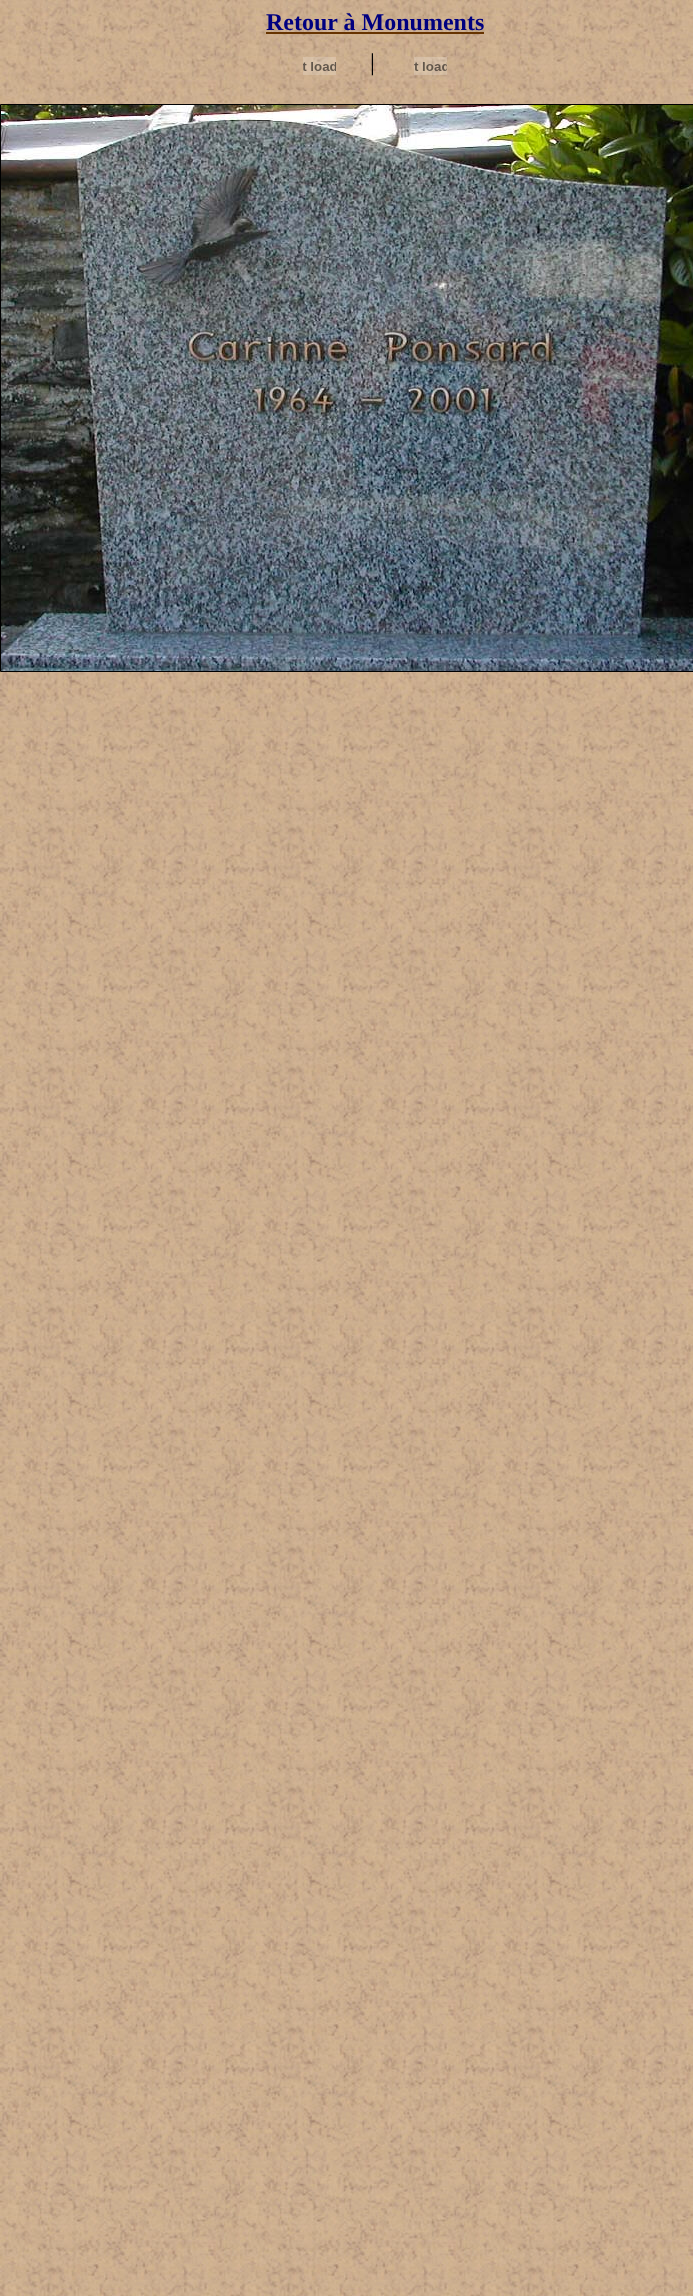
<svg xmlns="http://www.w3.org/2000/svg" width="693" height="2296" viewBox="0 0 693 2296">
  <rect width="100%" height="100%" fill="#fff"/>
  <image x="0" y="0" width="693" height="2296" href="img/1.png"/>
  <path d="M266 32h218v2H266z" fill="#630"/>
  <image x="303" y="57" width="33" height="18" href="img/2.png"/>
  <image x="414" y="57" width="33" height="18" href="img/3.png"/>
  <path d="M0.5 104.5h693v567H0.5z" fill="none" stroke="#000"/>
  <image x="1" y="105" width="692" height="566" href="img/4.png"/>
  <text x="266" y="30" font-family="Liberation Serif" font-size="24" font-weight="bold" fill="#000080">Retour à Monuments</text>
  <text x="370" y="70" font-family="Liberation Serif" font-size="24" fill="#000">|</text>
</svg>
